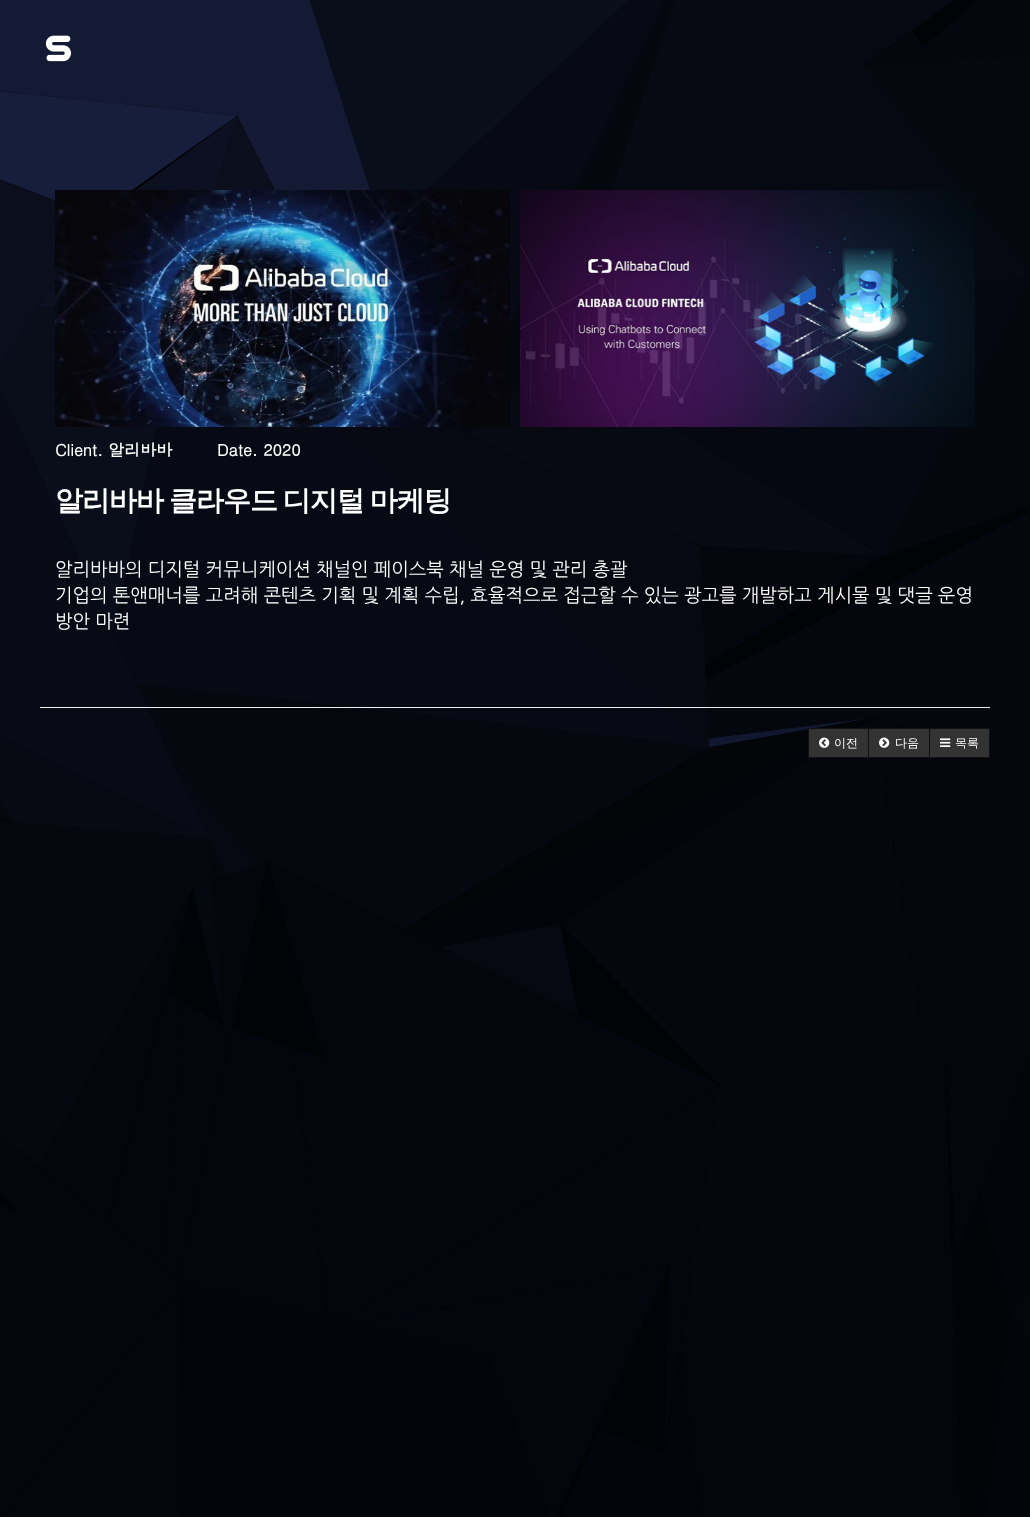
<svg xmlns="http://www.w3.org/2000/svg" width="1030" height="1517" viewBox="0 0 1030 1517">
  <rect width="100%" height="100%" fill="#000"/>
  <image x="0" y="0" width="1030" height="1517" href="img/1.png"/>
  <image x="45" y="35" width="27" height="27" href="img/2.png"/>
  <image x="55" y="190" width="455" height="237" href="img/3.png"/>
  <image x="520" y="190" width="455" height="237" href="img/4.png"/>
  <path d="M40 707h950v1H40z" fill="#eee"/>
  <path d="M808.5 728.5h60v29H808.5z" fill="#333" stroke="#111"/>
  <image x="819" y="737" width="11" height="11" href="img/5.png"/>
  <path d="M868.5 728.5h61v29H868.5z" fill="#333" stroke="#111"/>
  <image x="879" y="737" width="11" height="11" href="img/6.png"/>
  <path d="M929.5 728.5h60v29H929.5z" fill="#333" stroke="#111"/>
  <image x="940" y="738" width="11" height="9" href="img/7.png"/>
  <g font-family="Dotum" font-size="16" font-weight="bold" fill="#fff">
    <text x="55" y="456">Client. 알리바바</text>
    <text x="217" y="456">Date. 2020</text>
  </g>
  <text x="55" y="510" word-spacing="-1.5" font-family="WenQuanYi Zen Hei" font-size="28" font-weight="bold" letter-spacing="-1" fill="#fff">알리바바 클라우드 디지털 마케팅</text>
  <g font-family="NanumGothic" font-size="18.65" fill="#fff">
    <text x="55" y="576">알리바바의 디지털 커뮤니케이션 채널인 페이스북 채널 운영 및 관리 총괄</text>
    <text x="55" y="602">기업의 톤앤매너를 고려해 콘텐츠 기획 및 계획 수립, 효율적으로 접근할 수 있는 광고를 개발하고 게시물 및 댓글 운영</text>
    <text x="55" y="628">방안 마련</text>
  </g>
  <g font-family="WenQuanYi Zen Hei" font-size="12" font-weight="500" fill="#fff">
    <text x="834" y="747">이전</text>
    <text x="895" y="747">다음</text>
    <text x="955" y="747">목록</text>
  </g>
</svg>
